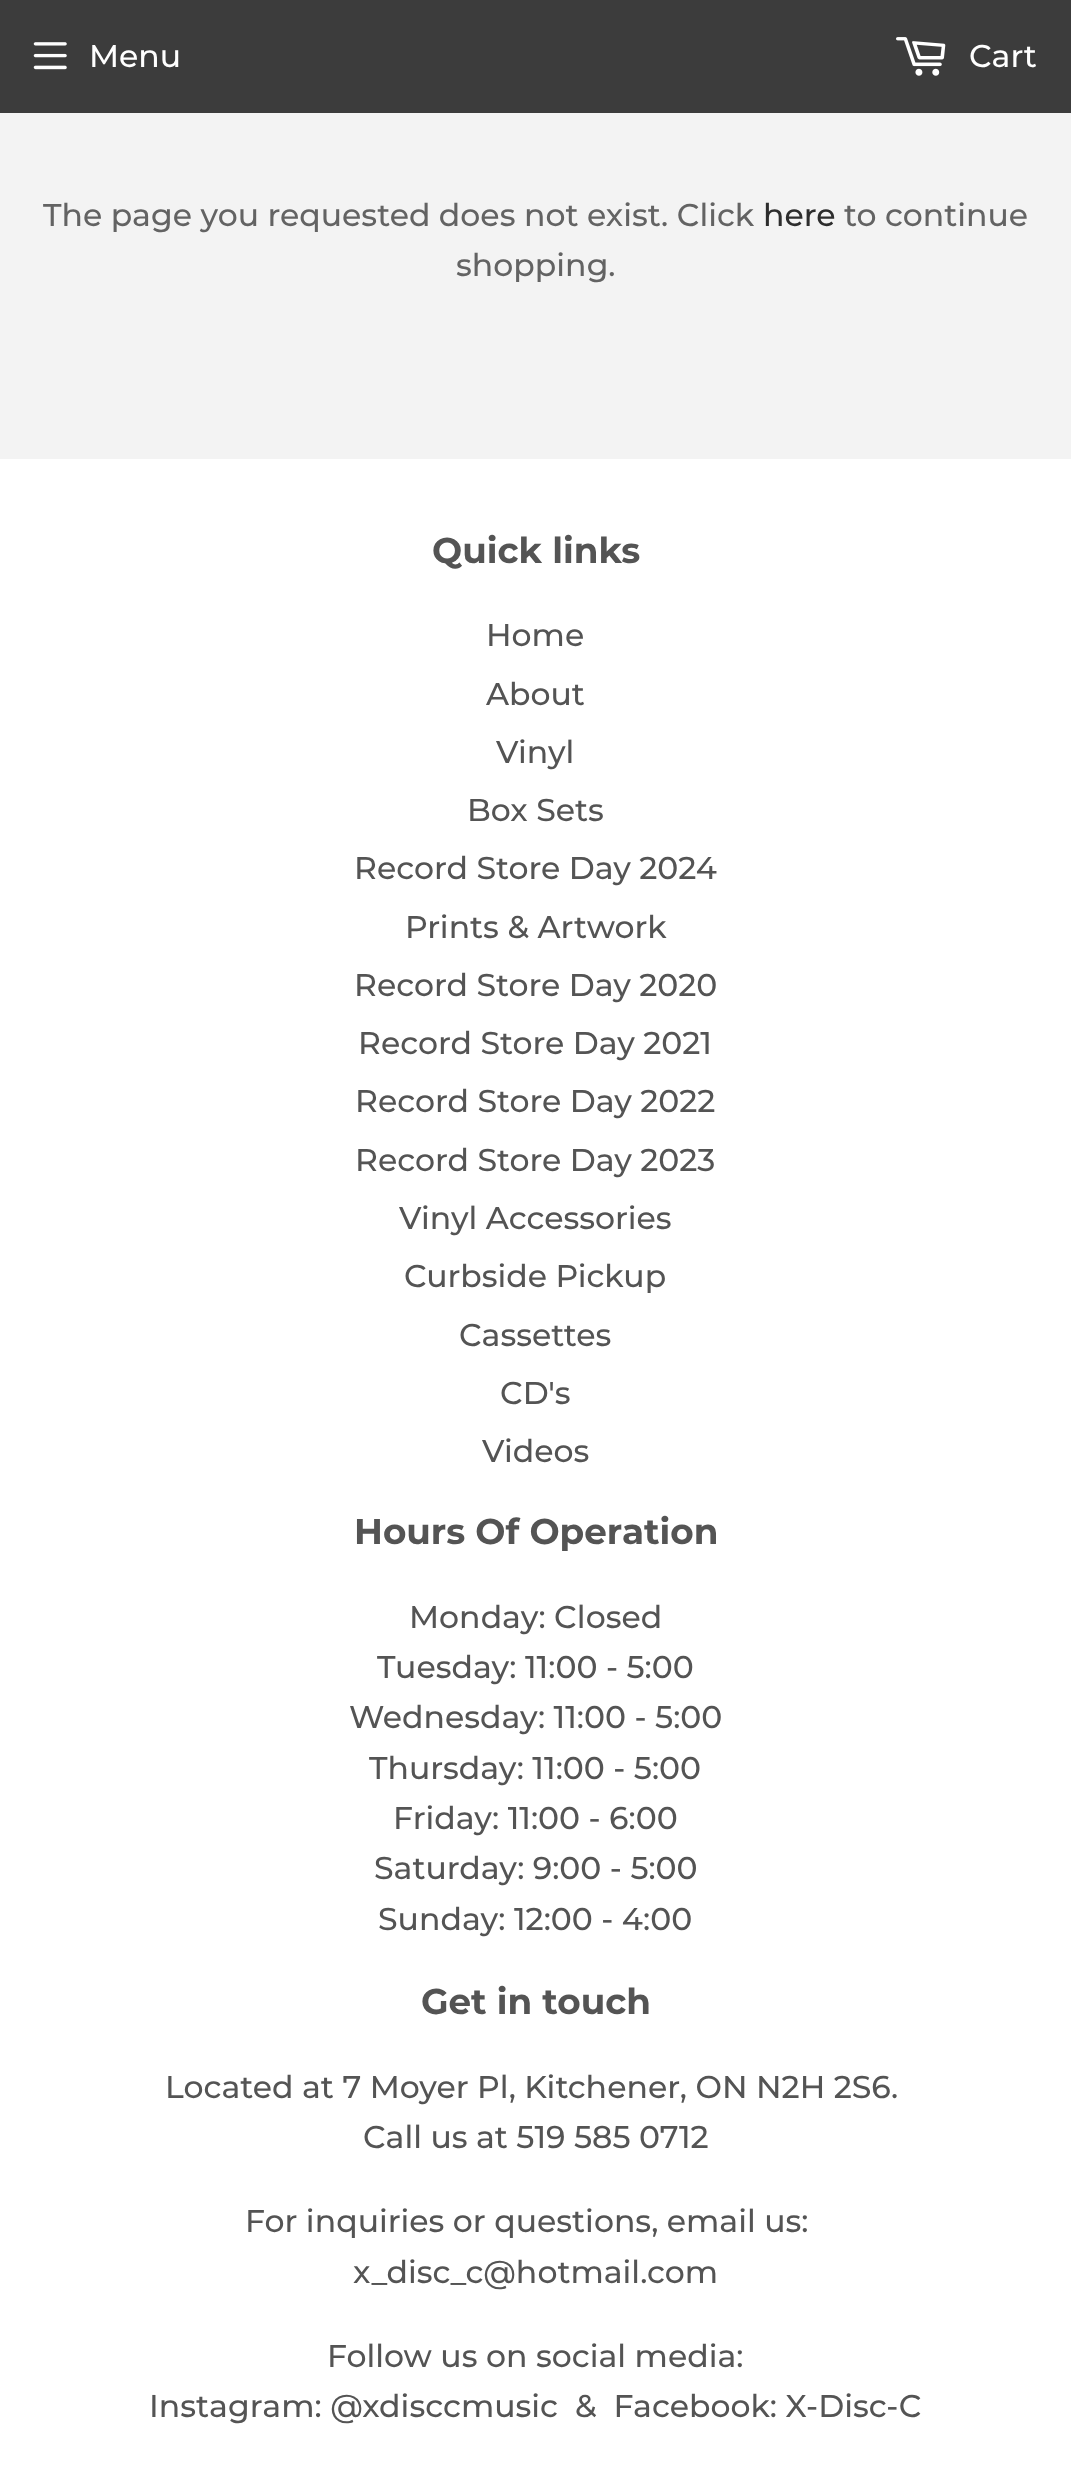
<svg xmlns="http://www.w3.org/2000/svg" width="1071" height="2481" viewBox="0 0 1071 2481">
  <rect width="100%" height="100%" fill="#f3f3f3"/>
  <path d="M0 0h1071v113H0z" fill="#3c3c3c"/>
  <image x="33" y="42" width="34" height="28" href="img/1.png"/>
  <image x="896" y="37" width="50" height="39" href="img/2.png"/>
  <path d="M0 459h1071v2022H0z" fill="#fff"/>
  <g font-family="Montserrat" font-size="31.5" font-weight="500" fill="#fff">
    <text x="89" y="67">Menu</text>
    <text x="969" y="67">Cart</text>
  </g>
  <text x="43" y="226" font-family="Montserrat" font-size="31.5" font-weight="500" fill="#636363">The page you requested does not exist. Click</text>
  <text x="763" y="226" font-family="Montserrat" font-size="31.5" font-weight="500" fill="#2d2d2d">here</text>
  <g font-family="Montserrat" font-size="31.5" font-weight="500" fill="#636363">
    <text x="844" y="226">to continue</text>
    <text x="456" y="276">shopping.</text>
  </g>
  <text x="432" y="563" font-family="Montserrat" font-size="35.75" font-weight="bold" fill="#545454">Quick links</text>
  <g font-family="Montserrat" font-size="31.5" font-weight="500" fill="#545454">
    <text x="486" y="646">Home</text>
    <text x="486" y="705">About</text>
    <text x="496" y="763">Vinyl</text>
    <text x="467" y="821">Box Sets</text>
    <text x="354" y="879">Record Store Day 2024</text>
    <text x="405" y="938">Prints &amp; Artwork</text>
    <text x="354" y="996">Record Store Day 2020</text>
    <text x="358" y="1054">Record Store Day 2021</text>
    <text x="355" y="1112">Record Store Day 2022</text>
    <text x="355" y="1171">Record Store Day 2023</text>
    <text x="399" y="1229">Vinyl Accessories</text>
    <text x="404" y="1287">Curbside Pickup</text>
    <text x="459" y="1346">Cassettes</text>
    <text x="500" y="1404">CD's</text>
    <text x="482" y="1462">Videos</text>
  </g>
  <text x="354" y="1544" font-family="Montserrat" font-size="35.75" font-weight="bold" fill="#545454">Hours Of Operation</text>
  <g font-family="Montserrat" font-size="31.5" font-weight="500" fill="#545454">
    <text x="409" y="1628">Monday: Closed</text>
    <text x="377" y="1678">Tuesday: 11:00 - 5:00</text>
    <text x="349" y="1728">Wednesday: 11:00 - 5:00</text>
    <text x="369" y="1779">Thursday: 11:00 - 5:00</text>
    <text x="393" y="1829">Friday: 11:00 - 6:00</text>
    <text x="374" y="1879">Saturday: 9:00 - 5:00</text>
    <text x="378" y="1930">Sunday: 12:00 - 4:00</text>
  </g>
  <text x="421" y="2014" font-family="Montserrat" font-size="35.75" font-weight="bold" fill="#545454">Get in touch</text>
  <g font-family="Montserrat" font-size="31.5" font-weight="500" fill="#545454">
    <text x="165" y="2098">Located at 7 Moyer Pl, Kitchener, ON N2H 2S6.</text>
    <text x="363" y="2148">Call us at 519 585 0712</text>
    <text x="245" y="2232">For inquiries or questions, email us:</text>
    <text x="353" y="2283">x_disc_c@hotmail.com</text>
    <text x="327" y="2367">Follow us on social media:</text>
    <text x="149" y="2417" xml:space="preserve">Instagram: @xdisccmusic  &amp;  Facebook: X-Disc-C</text>
  </g>
</svg>
